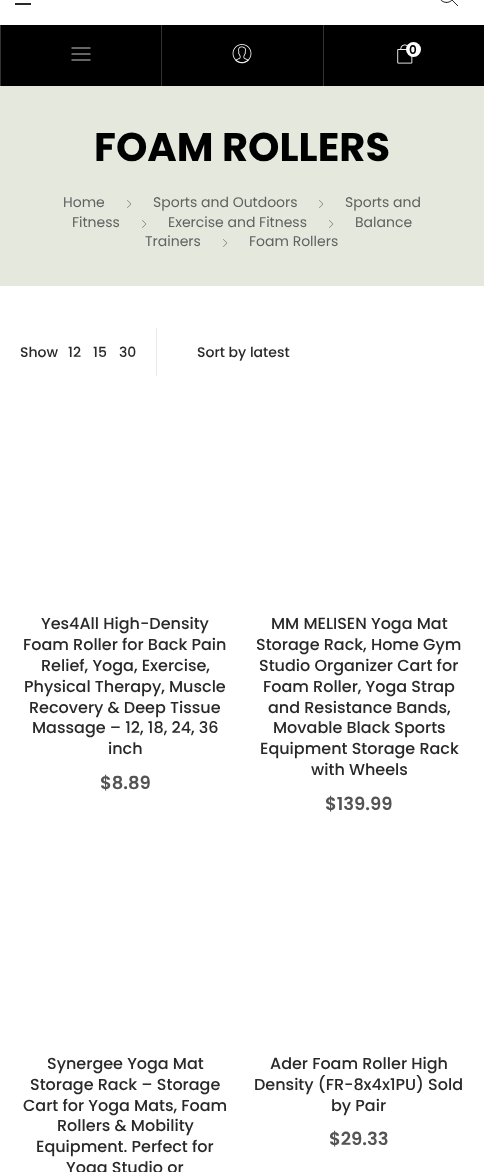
<svg xmlns="http://www.w3.org/2000/svg" width="484" height="1172" viewBox="0 0 484 1172">
  <defs>
    <clipPath id="clip1"><path d="M438 0h20v6H438z"/></clipPath>
  </defs>
  <rect width="100%" height="100%" fill="#fff"/>
  <path d="M15 3h16v2H15z" fill="#292929"/>
  <g clip-path="url(#clip1)">
    <path d="M458.5 6.5L452 0M446.5 2.5C457 2.5 457-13.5 446.5-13.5C436-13.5 436 2.5 446.5 2.5Z" fill="none" stroke="#292929" stroke-linecap="square"/>
  </g>
  <path d="M1 25h483v61H1z" fill="#000"/>
  <path d="M0 25h1v61H0z" fill="#333"/>
  <path d="M72 54H90M72 48H90M72 60H90" fill="none" stroke="#fff" stroke-width="0.8" stroke-linecap="square"/>
  <path d="M161 25h1v61H161z" fill="#333"/>
  <image x="232" y="44" width="20" height="20" href="img/1.png"/>
  <path d="M323 25h1v61H323z" fill="#333"/>
  <image x="397" y="44" width="16" height="20" href="img/2.png"/>
  <circle cx="413.5" cy="49.5" r="7.5" fill="#fff"/>
  <path d="M0 86h484v200H0z" fill="#e5e9dd"/>
  <image x="127" y="200" width="5" height="8" href="img/3.png"/>
  <image x="319" y="200" width="5" height="8" href="img/3.png"/>
  <image x="142" y="220" width="5" height="8" href="img/3.png"/>
  <image x="329" y="220" width="5" height="8" href="img/3.png"/>
  <image x="223" y="239" width="5" height="8" href="img/3.png"/>
  <path d="M156 328h1v48H156z" fill="#ebebeb"/>
  <text x="409" y="54" font-family="Poppins" font-size="12" font-weight="600" fill="#000">0</text>
  <text x="94" y="161" font-family="Poppins" font-size="40" font-weight="bold" fill="#000">FOAM ROLLERS</text>
  <g font-family="Poppins" font-size="14" fill="#616161">
    <text x="63" y="207">Home</text>
    <text x="153" y="207">Sports and Outdoors</text>
    <text x="345" y="207">Sports and</text>
    <text x="72" y="227">Fitness</text>
    <text x="168" y="227">Exercise and Fitness</text>
    <text x="355" y="227">Balance</text>
    <text x="145" y="246">Trainers</text>
    <text x="249" y="246">Foam Rollers</text>
  </g>
  <g font-family="Poppins" font-size="14" font-weight="500" fill="#292929">
    <text x="20" y="357">Show</text>
    <text x="68" y="357">12</text>
    <text x="93" y="357">15</text>
    <text x="119" y="357">30</text>
    <text x="197" y="357">Sort by latest</text>
  </g>
  <g font-family="Poppins" font-size="16" font-weight="500" fill="#292929">
    <text x="41" y="629">Yes4All High-Density</text>
    <text x="23" y="650">Foam Roller for Back Pain</text>
    <text x="41" y="671">Relief, Yoga, Exercise,</text>
    <text x="24" y="692">Physical Therapy, Muscle</text>
    <text x="29" y="713">Recovery &amp; Deep Tissue</text>
    <text x="32" y="733">Massage – 12, 18, 24, 36</text>
    <text x="108" y="754">inch</text>
  </g>
  <text x="100" y="789" font-family="Poppins" font-size="18" font-weight="600" fill="#545454">$8.89</text>
  <g font-family="Poppins" font-size="16" font-weight="500" fill="#292929">
    <text x="271" y="629">MM MELISEN Yoga Mat</text>
    <text x="256" y="650">Storage Rack, Home Gym</text>
    <text x="259" y="671">Studio Organizer Cart for</text>
    <text x="263" y="692">Foam Roller, Yoga Strap</text>
    <text x="268" y="713">and Resistance Bands,</text>
    <text x="273" y="733">Movable Black Sports</text>
    <text x="260" y="754">Equipment Storage Rack</text>
    <text x="311" y="775">with Wheels</text>
  </g>
  <text x="325" y="810" font-family="Poppins" font-size="18" font-weight="600" fill="#545454">$139.99</text>
  <g font-family="Poppins" font-size="16" font-weight="500" fill="#292929">
    <text x="47" y="1069">Synergee Yoga Mat</text>
    <text x="30" y="1090">Storage Rack – Storage</text>
    <text x="23" y="1111">Cart for Yoga Mats, Foam</text>
    <text x="57" y="1131">Rollers &amp; Mobility</text>
    <text x="36" y="1152">Equipment. Perfect for</text>
    <text x="66" y="1173">Yoga Studio or</text>
    <text x="270" y="1069">Ader Foam Roller High</text>
    <text x="254" y="1090">Density (FR-8x4x1PU) Sold</text>
    <text x="331" y="1111">by Pair</text>
  </g>
  <text x="329" y="1145" font-family="Poppins" font-size="18" font-weight="600" fill="#545454">$29.33</text>
</svg>
